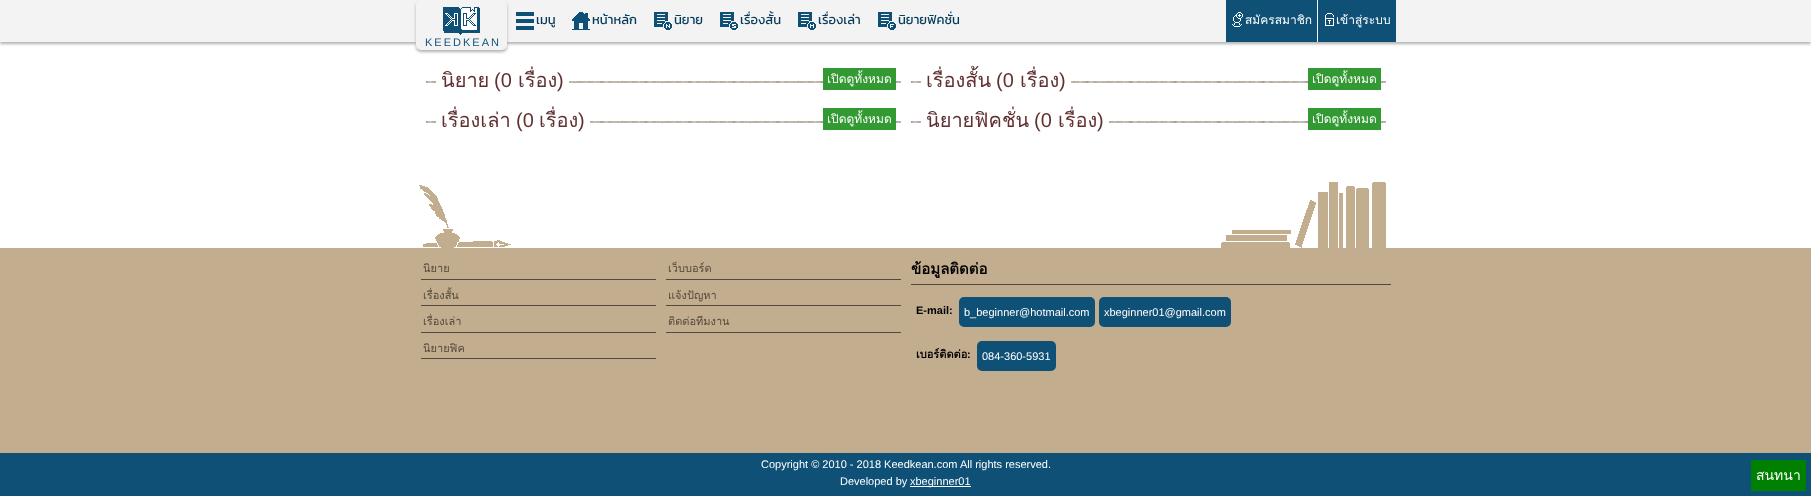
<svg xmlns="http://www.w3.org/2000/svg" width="1811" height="496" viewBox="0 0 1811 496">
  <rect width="100%" height="100%" fill="#fff"/>
  <path d="M0 2h1811v42H0z" fill="#b1b1b1" filter="blur(1.5px)"/>
  <path d="M0 0h1811v42H0z" fill="#f3f3f3"/>
  <image x="516" y="12" width="18" height="18" href="img/1.png"/>
  <image x="572" y="12" width="18" height="18" href="img/2.png"/>
  <image x="654" y="12" width="18" height="18" href="img/3.png"/>
  <image x="720" y="12" width="18" height="18" href="img/4.png"/>
  <image x="798" y="12" width="18" height="18" href="img/5.png"/>
  <image x="878" y="12" width="18" height="18" href="img/6.png"/>
  <path d="M1226 0h91v42H1226z" fill="#0f5076"/>
  <image x="1232" y="12" width="11" height="15" href="img/7.png"/>
  <path d="M1318 0h78v42H1318z" fill="#0f5076"/>
  <image x="1325" y="13" width="9" height="13" href="img/8.png"/>
  <rect x="416" y="2" width="91" height="50" rx="5" fill="#b1b1b1" filter="blur(1.5px)"/>
  <rect x="416" width="91" height="50" rx="5" fill="#f3f3f3"/>
  <image x="443" y="7" width="37" height="28" href="img/9.png"/>
  <image x="426" y="81" width="475" height="2" href="img/10.png"/>
  <path d="M436 81h133v2H436z" fill="#fff"/>
  <path d="M823 68h73v22H823z" fill="#393"/>
  <image x="911" y="81" width="475" height="2" href="img/10.png"/>
  <path d="M921 81h150v2H921z" fill="#fff"/>
  <path d="M1308 68h73v22H1308z" fill="#393"/>
  <image x="426" y="121" width="475" height="2" href="img/10.png"/>
  <path d="M436 121h154v2H436z" fill="#fff"/>
  <path d="M823 108h73v22H823z" fill="#393"/>
  <image x="911" y="121" width="475" height="2" href="img/10.png"/>
  <path d="M921 121h188v2H921z" fill="#fff"/>
  <path d="M1308 108h73v22H1308z" fill="#393"/>
  <path d="M0 248h1811v205H0z" fill="#c3ad8f"/>
  <image x="416" y="148" width="980" height="100" href="img/11.png"/>
  <path d="M421 279h235v1H421z" fill="#54493a"/>
  <path d="M421 305h235v1H421z" fill="#54493a"/>
  <path d="M421 332h235v1H421z" fill="#54493a"/>
  <path d="M421 358h235v1H421z" fill="#54493a"/>
  <path d="M666 279h235v1H666z" fill="#54493a"/>
  <path d="M666 305h235v1H666z" fill="#54493a"/>
  <path d="M666 332h235v1H666z" fill="#54493a"/>
  <path d="M911 284h480v1H911z" fill="#54493a"/>
  <rect x="959" y="297" width="136" height="30" rx="5" fill="#0f5076"/>
  <rect x="1099" y="297" width="132" height="30" rx="5" fill="#0f5076"/>
  <rect x="977" y="341" width="79" height="30" rx="5" fill="#0f5076"/>
  <path d="M0 453h1811v43H0z" fill="#0f5076"/>
  <path d="M910 486h61v1H910z" fill="#fff"/>
  <path d="M1751 460h55v31H1751z" fill="#008000"/>
  <g font-family="Kanit" font-size="13" fill="#063c5b">
    <text x="536" y="24">เมนู</text>
    <text x="592" y="24">หน้าหลัก</text>
    <text x="674" y="24">นิยาย</text>
    <text x="740" y="24">เรื่องสั้น</text>
    <text x="818" y="24">เรื่องเล่า</text>
    <text x="898" y="24">นิยายฟิคชั่น</text>
  </g>
  <g font-family="Loma" font-size="12" fill="#fff">
    <text x="1245" y="24">สมัครสมาชิก</text>
    <text x="1336" y="24">เข้าสู่ระบบ</text>
  </g>
  <text x="425" y="46" font-family="Liberation Sans" font-size="11" letter-spacing="2" fill="#0f5076">KEEDKEAN</text>
  <text x="441" y="87" font-family="Loma" font-size="20" fill="#613030">นิยาย</text>
  <text x="494" y="87" font-family="Liberation Sans" font-size="20" fill="#613030">(0</text>
  <text x="518" y="87" font-family="Loma" font-size="20" fill="#613030">เรื่อง</text>
  <text x="557" y="87" font-family="Liberation Sans" font-size="20" fill="#613030">)</text>
  <text x="827" y="83" font-family="Loma" font-size="12" fill="#fff">เปิดดูทั้งหมด</text>
  <text x="926" y="87" font-family="Loma" font-size="20" fill="#613030">เรื่องสั้น</text>
  <text x="996" y="87" font-family="Liberation Sans" font-size="20" fill="#613030">(0</text>
  <text x="1020" y="87" font-family="Loma" font-size="20" fill="#613030">เรื่อง</text>
  <text x="1059" y="87" font-family="Liberation Sans" font-size="20" fill="#613030">)</text>
  <text x="1312" y="83" font-family="Loma" font-size="12" fill="#fff">เปิดดูทั้งหมด</text>
  <text x="441" y="127" font-family="Loma" font-size="20" fill="#613030">เรื่องเล่า</text>
  <text x="516" y="127" font-family="Liberation Sans" font-size="20" fill="#613030">(0</text>
  <text x="539" y="127" font-family="Loma" font-size="20" fill="#613030">เรื่อง</text>
  <text x="578" y="127" font-family="Liberation Sans" font-size="20" fill="#613030">)</text>
  <text x="827" y="123" font-family="Loma" font-size="12" fill="#fff">เปิดดูทั้งหมด</text>
  <text x="926" y="127" font-family="Loma" font-size="20" fill="#613030">นิยายฟิคชั่น</text>
  <text x="1034" y="127" font-family="Liberation Sans" font-size="20" fill="#613030">(0</text>
  <text x="1058" y="127" font-family="Loma" font-size="20" fill="#613030">เรื่อง</text>
  <text x="1097" y="127" font-family="Liberation Sans" font-size="20" fill="#613030">)</text>
  <text x="1312" y="123" font-family="Loma" font-size="12" fill="#fff">เปิดดูทั้งหมด</text>
  <g font-family="Loma" font-size="11" fill="#54493a">
    <text x="423" y="272">นิยาย</text>
    <text x="423" y="299">เรื่องสั้น</text>
    <text x="423" y="325">เรื่องเล่า</text>
    <text x="423" y="352">นิยายฟิค</text>
    <text x="668" y="272">เว็บบอร์ด</text>
    <text x="668" y="299">แจ้งปัญหา</text>
    <text x="668" y="325">ติดต่อทีมงาน</text>
  </g>
  <text x="911" y="274" font-family="Loma" font-size="15" font-weight="bold" fill="#000">ข้อมูลติดต่อ</text>
  <text x="916" y="314" font-family="Liberation Sans" font-size="11" font-weight="bold" fill="#000">E-mail:</text>
  <g font-family="Liberation Sans" font-size="11" fill="#fff">
    <text x="964" y="316">b_beginner@hotmail.com</text>
    <text x="1104" y="316">xbeginner01@gmail.com</text>
  </g>
  <text x="916" y="358" font-family="Loma" font-size="11" font-weight="bold" fill="#000">เบอร์ติดต่อ</text>
  <text x="967" y="358" font-family="Liberation Sans" font-size="11" font-weight="bold" fill="#000">:</text>
  <g font-family="Liberation Sans" font-size="11" fill="#fff">
    <text x="982" y="360">084-360-5931</text>
    <text x="761" y="468">Copyright © 2010 - 2018 Keedkean.com All rights reserved.</text>
    <text x="840" y="485">Developed by</text>
    <text x="910" y="485">xbeginner01</text>
  </g>
  <text x="1756" y="480" font-family="Loma" font-size="14" fill="#fff">สนทนา</text>
</svg>
